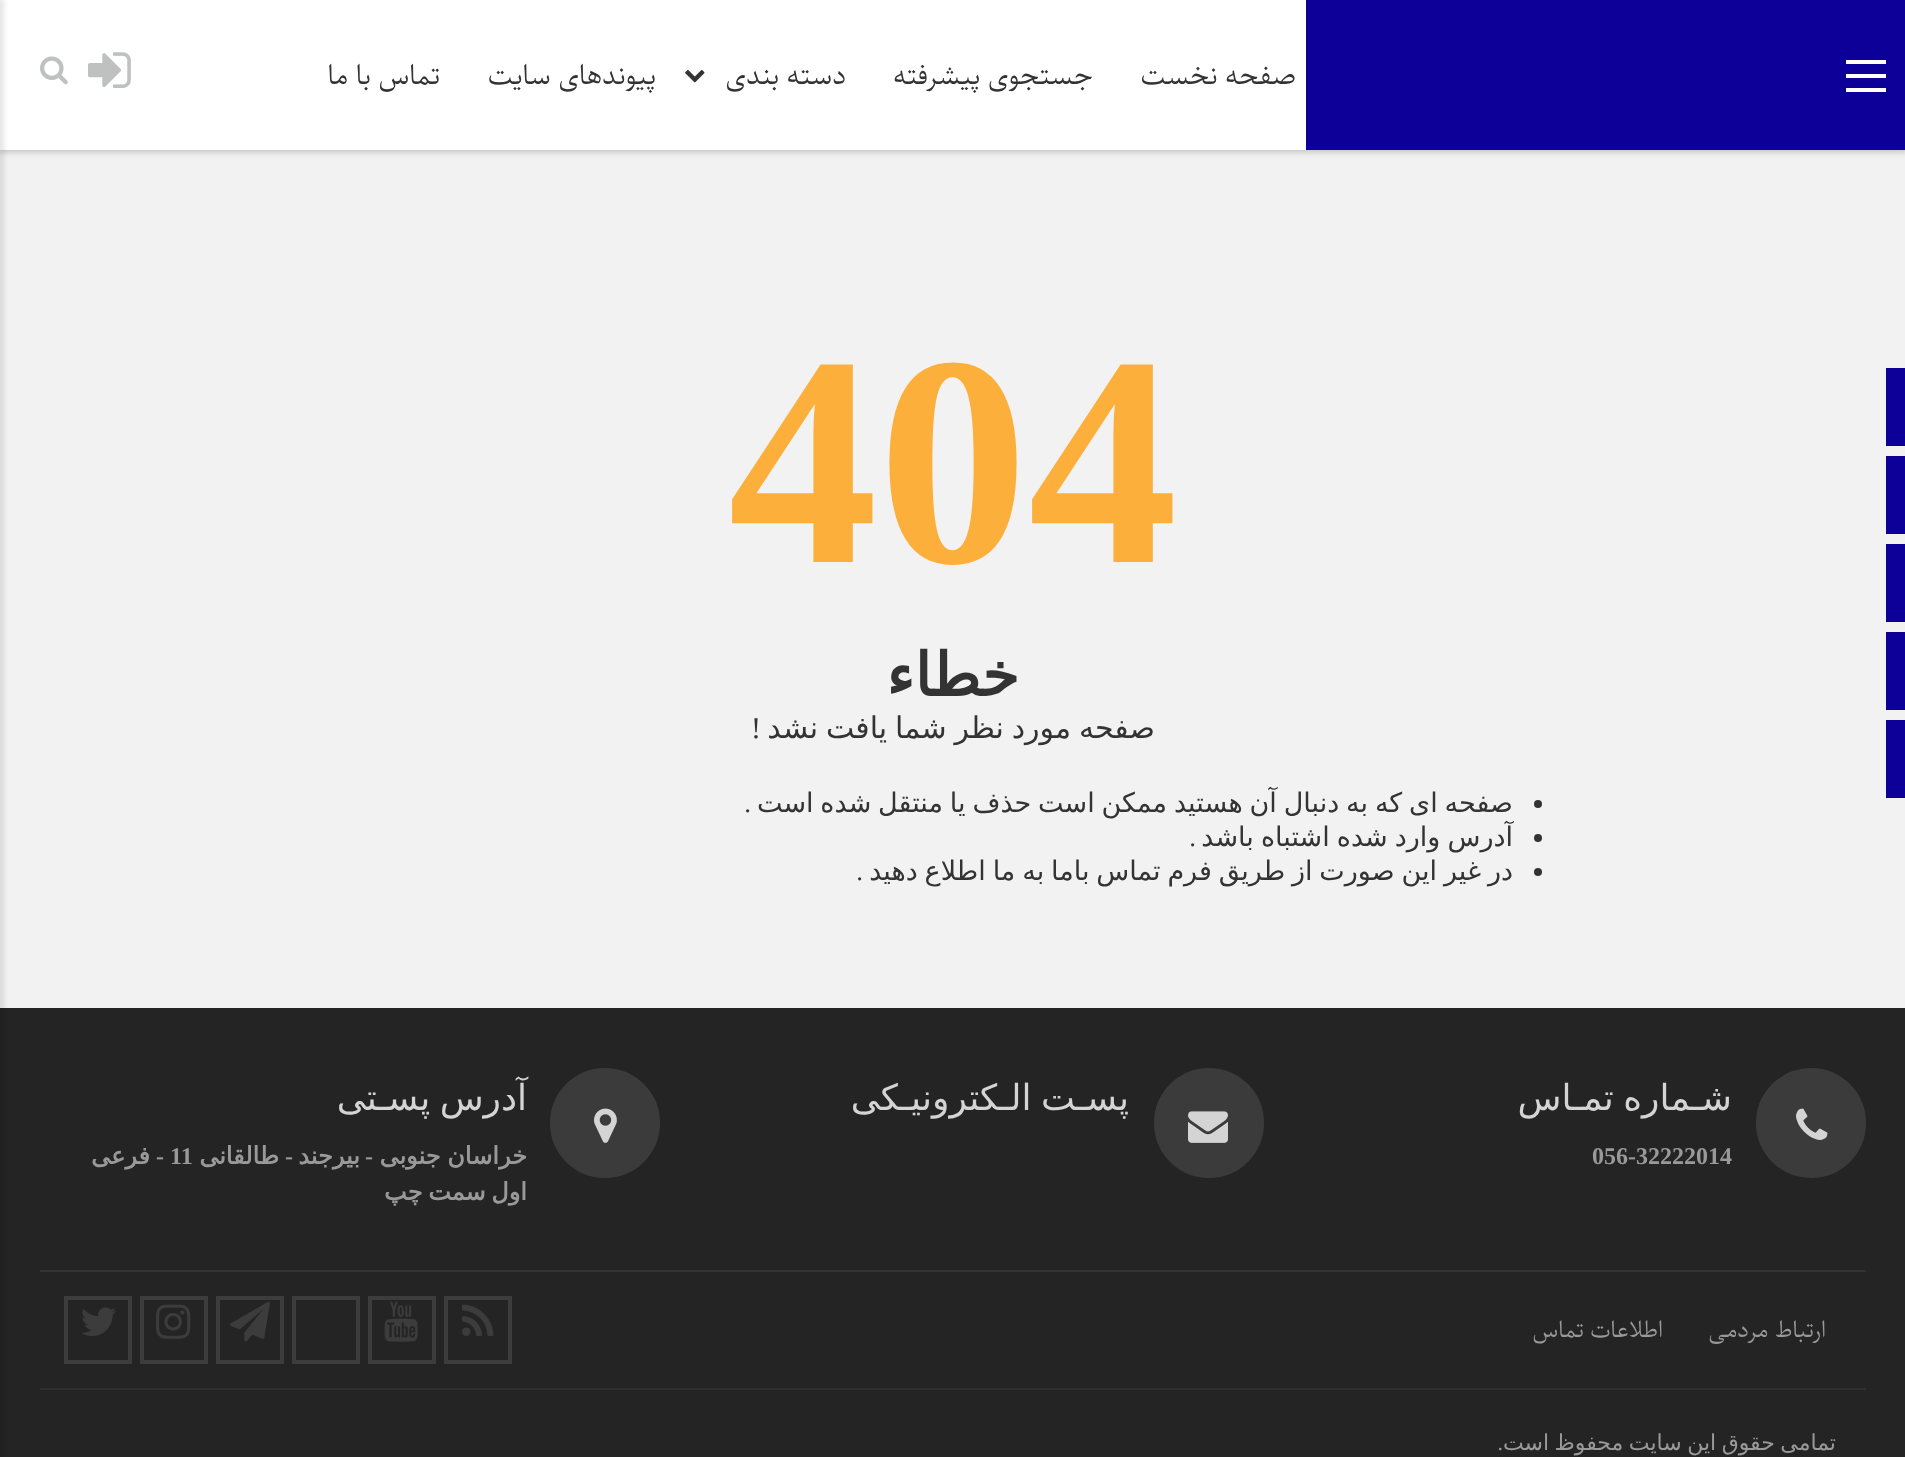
<svg xmlns="http://www.w3.org/2000/svg" width="1905" height="1457" viewBox="0 0 1905 1457">
  <rect width="100%" height="100%" fill="#f2f2f2"/>
  <path d="M-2 -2h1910v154H-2z" fill="#00000033" filter="blur(3px)"/>
  <path d="M0 0h1306v150H0z" fill="#fff"/>
  <path d="M1306 0h599v150H1306z" fill="#0c0099"/>
  <path d="M1846 60h40v4H1846z" fill="#fff"/>
  <path d="M1846 74h40v4H1846z" fill="#fff"/>
  <path d="M1846 88h40v4H1846z" fill="#fff"/>
  <image x="685" y="70" width="20" height="13" href="img/1.png"/>
  <image x="88" y="52" width="43" height="36" href="img/2.png"/>
  <image x="40" y="56" width="28" height="29" href="img/3.png"/>
  <path d="M1886 368h19v78H1886z" fill="#0c0099"/>
  <path d="M1886 456h19v78H1886z" fill="#0c0099"/>
  <path d="M1886 544h19v78H1886z" fill="#0c0099"/>
  <path d="M1886 632h19v78H1886z" fill="#0c0099"/>
  <path d="M1886 720h19v78H1886z" fill="#0c0099"/>
  <path d="M0 1008h1905v449H0z" fill="#242424"/>
  <path d="M-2 -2h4v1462H-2z" fill="#00000033" filter="blur(3px)"/>
  <circle cx="1538" cy="804" r="4" fill="#333"/>
  <circle cx="1538" cy="838" r="4" fill="#333"/>
  <circle cx="1538" cy="872" r="4" fill="#333"/>
  <path d="M40 1270h1826v2H40z" fill="#333"/>
  <circle cx="1811" cy="1123" r="53" fill="#3b3b3b" stroke="#3b3b3b" stroke-width="4"/>
  <image x="1796" y="1108" width="32" height="32" href="img/4.png"/>
  <circle cx="1209" cy="1123" r="53" fill="#3b3b3b" stroke="#3b3b3b" stroke-width="4"/>
  <image x="1188" y="1111" width="40" height="32" href="img/5.png"/>
  <circle cx="605" cy="1123" r="53" fill="#3b3b3b" stroke="#3b3b3b" stroke-width="4"/>
  <image x="594" y="1108" width="23" height="35" href="img/6.png"/>
  <path d="M40 1388h1826v2H40z" fill="#2f2f2f"/>
  <path d="M446 1298h64v64H446z" fill="none" stroke="#3d3c3c" stroke-width="4"/>
  <image x="462" y="1304" width="32" height="32" href="img/7.png"/>
  <path d="M370 1298h64v64H370z" fill="none" stroke="#3d3c3c" stroke-width="4"/>
  <image x="384" y="1301" width="34" height="41" href="img/8.png"/>
  <path d="M294 1298h64v64H294z" fill="none" stroke="#3d3c3c" stroke-width="4"/>
  <path d="M218 1298h64v64H218z" fill="none" stroke="#3d3c3c" stroke-width="4"/>
  <image x="230" y="1301" width="40" height="41" href="img/9.png"/>
  <path d="M142 1298h64v64H142z" fill="none" stroke="#3d3c3c" stroke-width="4"/>
  <image x="156" y="1304" width="35" height="35" href="img/10.png"/>
  <path d="M66 1298h64v64H66z" fill="none" stroke="#3d3c3c" stroke-width="4"/>
  <image x="82" y="1307" width="34" height="29" href="img/11.png"/>
  <g font-family="Parastoo" font-size="36" direction="rtl" fill="#333">
    <text x="1296" y="84">صفحه نخست</text>
    <text x="1093" y="84">جستجوی پیشرفته</text>
    <text x="846" y="84">دسته بندی</text>
    <text x="656" y="84">پیوندهای سایت</text>
    <text x="440" y="84">تماس با ما</text>
  </g>
  <text x="728" y="562" font-family="Liberation Serif" font-size="300" font-weight="bold" fill="#fcb03b">404</text>
  <text x="1019" y="696" font-family="DejaVu Sans" font-size="60" font-weight="bold" direction="rtl" fill="#333">خطاء</text>
  <text x="1155" y="738" word-spacing="-1.75" font-family="DejaVu Sans" font-size="30" direction="rtl" fill="#333">صفحه مورد نظر شما یافت نشد</text>
  <text x="761" y="738" font-family="Liberation Serif" font-size="30" direction="rtl" fill="#333">!</text>
  <text x="1513" y="812" word-spacing="-1.75" font-family="DejaVu Sans" font-size="27" direction="rtl" fill="#333">صفحه ای که به دنبال آن هستید ممکن است حذف یا منتقل شده است</text>
  <text x="751" y="812" font-family="Liberation Serif" font-size="27" direction="rtl" fill="#333">.</text>
  <text x="1513" y="846" word-spacing="-1.5" font-family="DejaVu Sans" font-size="27" direction="rtl" fill="#333">آدرس وارد شده اشتباه باشد</text>
  <text x="1196" y="846" font-family="Liberation Serif" font-size="27" direction="rtl" fill="#333">.</text>
  <text x="1513" y="880" word-spacing="-1.75" font-family="DejaVu Sans" font-size="27" direction="rtl" fill="#333">در غیر این صورت از طریق فرم تماس باما به ما اطلاع دهید</text>
  <text x="863" y="880" font-family="Liberation Serif" font-size="27" direction="rtl" fill="#333">.</text>
  <text x="1732" y="1110" word-spacing="-2" font-family="DejaVu Sans" font-size="36" direction="rtl" fill="#d4d4d4">شـماره تمـاس</text>
  <text x="1592" y="1164" font-family="Liberation Serif" font-size="24" font-weight="bold" fill="#999">056-32222014</text>
  <g font-family="DejaVu Sans" font-size="36" direction="rtl" fill="#d4d4d4">
    <text x="1129" y="1110" word-spacing="-2">پسـت الـکترونیـکی</text>
    <text x="527" y="1110" word-spacing="-2">آدرس پسـتی</text>
  </g>
  <text x="527" y="1164" word-spacing="-1" font-family="DejaVu Sans" font-size="24" font-weight="bold" direction="rtl" fill="#999">خراسان جنوبی</text>
  <text x="373" y="1164" font-family="Liberation Serif" font-size="24" font-weight="bold" direction="rtl" fill="#999">-</text>
  <text x="360" y="1164" font-family="DejaVu Sans" font-size="24" font-weight="bold" direction="rtl" fill="#999">بیرجند</text>
  <text x="293" y="1164" font-family="Liberation Serif" font-size="24" font-weight="bold" direction="rtl" fill="#999">-</text>
  <text x="279" y="1164" font-family="DejaVu Sans" font-size="24" font-weight="bold" direction="rtl" fill="#999">طالقانی</text>
  <text x="170" y="1164" font-family="Liberation Serif" font-size="24" font-weight="bold" fill="#999">11</text>
  <text x="164" y="1164" font-family="Liberation Serif" font-size="24" font-weight="bold" direction="rtl" fill="#999">-</text>
  <g font-family="DejaVu Sans" font-size="24" font-weight="bold" direction="rtl" fill="#999">
    <text x="150" y="1164">فرعی</text>
    <text x="527" y="1200" word-spacing="-2">اول سمت چپ</text>
  </g>
  <g font-family="Parastoo" font-size="30" direction="rtl" fill="#999">
    <text x="1826" y="1337">ارتباط مردمی</text>
    <text x="1663" y="1337">اطلاعات تماس</text>
  </g>
  <text x="1836" y="1450" word-spacing="-1.5" font-family="DejaVu Sans" font-size="22" direction="rtl" fill="#999">تمامی حقوق این سایت محفوظ است</text>
  <text x="1503" y="1450" font-family="Liberation Serif" font-size="22" direction="rtl" fill="#999">.</text>
</svg>
